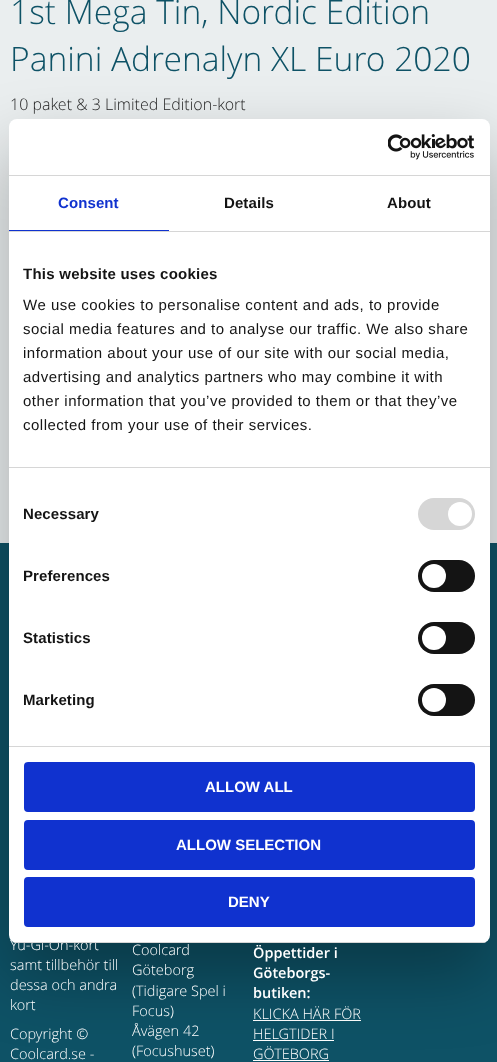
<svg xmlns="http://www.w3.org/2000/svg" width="497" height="1062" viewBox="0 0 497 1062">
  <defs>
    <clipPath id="clip1"><rect x="9" y="119" width="481" height="824" rx="8"/></clipPath>
  </defs>
  <rect width="100%" height="100%" fill="#eaeeef"/>
  <path d="M0 543h497v519H0z" fill="#0e5266"/>
  <path d="M253 1020h108v1H253z" fill="#fff"/>
  <path d="M253 1040h81v1H253z" fill="#fff"/>
  <path d="M253 1060h76v1H253z" fill="#fff"/>
  <rect x="9" y="151" width="481" height="824" rx="8" fill="#0000004d" filter="blur(34px)"/>
  <rect x="9" y="119" width="481" height="824" rx="8" fill="#fff"/>
  <path d="M9 175h481v1H9z" fill="#d6d6d6"/>
  <image x="388" y="134" width="87" height="26" href="img/1.png"/>
  <path d="M9 231h481v1H9z" fill="#d6d6d6"/>
  <path d="M9 230h160v1H9z" fill="#1032cf"/>
  <path d="M9 467h481v1H9z" fill="#d6d6d6"/>
  <path d="M9 746h481v1H9z" fill="#d6d6d6"/>
  <rect x="418" y="498" width="57" height="32" rx="16" fill="#d6d6d6"/>
  <circle cx="460" cy="514" r="12" fill="#fff"/>
  <rect x="418" y="560" width="57" height="32" rx="16" fill="#141414"/>
  <circle cx="434" cy="576" r="12" fill="#fff"/>
  <rect x="418" y="622" width="57" height="32" rx="16" fill="#141414"/>
  <circle cx="434" cy="638" r="12" fill="#fff"/>
  <rect x="418" y="684" width="57" height="32" rx="16" fill="#141414"/>
  <circle cx="434" cy="700" r="12" fill="#fff"/>
  <rect x="25" y="763" width="449" height="48" rx="3" fill="#1032cf" stroke="#1032cf" stroke-width="2"/>
  <rect x="25" y="821" width="449" height="48" rx="3" fill="#1032cf" stroke="#1032cf" stroke-width="2"/>
  <rect x="25" y="878" width="449" height="48" rx="3" fill="#1032cf" stroke="#1032cf" stroke-width="2"/>
  <g font-family="Open Sans" font-size="33.6" font-weight="300" fill="#0e5266">
    <text x="10" y="24">1st Mega Tin, Nordic Edition</text>
    <text x="10" y="71">Panini Adrenalyn XL Euro 2020</text>
  </g>
  <text x="10" y="110" font-family="Open Sans" font-size="16" font-weight="300" fill="#1e1e1e">10 paket &amp; 3 Limited Edition-kort</text>
  <g font-family="Open Sans" font-size="14.5" font-weight="300" fill="#fff">
    <text x="10" y="950">Yu-Gi-Oh-kort</text>
    <text x="10" y="970">samt tillbehör till</text>
    <text x="10" y="990">dessa och andra</text>
    <text x="10" y="1010">kort</text>
    <text x="10" y="1039">Copyright ©</text>
    <text x="10" y="1059">Coolcard.se -</text>
    <text x="132" y="955">Coolcard</text>
    <text x="132" y="975">Göteborg</text>
    <text x="132" y="996">(Tidigare Spel i</text>
    <text x="132" y="1016">Focus)</text>
    <text x="132" y="1036">Åvägen 42</text>
    <text x="132" y="1056">(Focushuset)</text>
  </g>
  <g font-family="Open Sans" font-size="14.5" font-weight="600" fill="#fff">
    <text x="253" y="958">Öppettider i</text>
    <text x="253" y="978">Göteborgs-</text>
    <text x="253" y="998">butiken:</text>
  </g>
  <g font-family="Open Sans" font-size="14.5" font-weight="300" fill="#fff">
    <text x="253" y="1019">KLICKA HÄR FÖR</text>
    <text x="253" y="1039">HELGTIDER I</text>
    <text x="253" y="1059">GÖTEBORG</text>
  </g>
  <text x="58" y="208" font-family="Liberation Sans" font-size="15" font-weight="bold" letter-spacing="0.1" fill="#1032cf">Consent</text>
  <g font-family="Liberation Sans" font-size="15" font-weight="bold" letter-spacing="0.1" fill="#141414">
    <text x="224" y="208">Details</text>
    <text x="387" y="208">About</text>
  </g>
  <text x="23" y="279" font-family="Liberation Sans" font-size="15" font-weight="bold" letter-spacing="0.25" fill="#141414">This website uses cookies</text>
  <g font-family="Liberation Sans" font-size="15" letter-spacing="0.5" fill="#141414">
    <text x="23" y="310">We use cookies to personalise content and ads, to provide</text>
    <text x="23" y="334">social media features and to analyse our traffic. We also share</text>
    <text x="23" y="358">information about your use of our site with our social media,</text>
    <text x="23" y="382">advertising and analytics partners who may combine it with</text>
    <text x="23" y="406">other information that you’ve provided to them or that they’ve</text>
    <text x="23" y="430">collected from your use of their services.</text>
  </g>
  <g font-family="Liberation Sans" font-size="15" font-weight="bold" letter-spacing="0.1" fill="#141414">
    <text x="23" y="519">Necessary</text>
    <text x="23" y="581">Preferences</text>
    <text x="23" y="643">Statistics</text>
    <text x="23" y="705">Marketing</text>
  </g>
  <g clip-path="url(#clip1)">
    <path d="M9 942h481v1H9z" fill="#d6d6d6"/>
  </g>
  <g font-family="Liberation Sans" font-size="15" font-weight="bold" fill="#fff">
    <text x="205" y="792">ALLOW ALL</text>
    <text x="176" y="850">ALLOW SELECTION</text>
    <text x="228" y="907">DENY</text>
  </g>
</svg>
